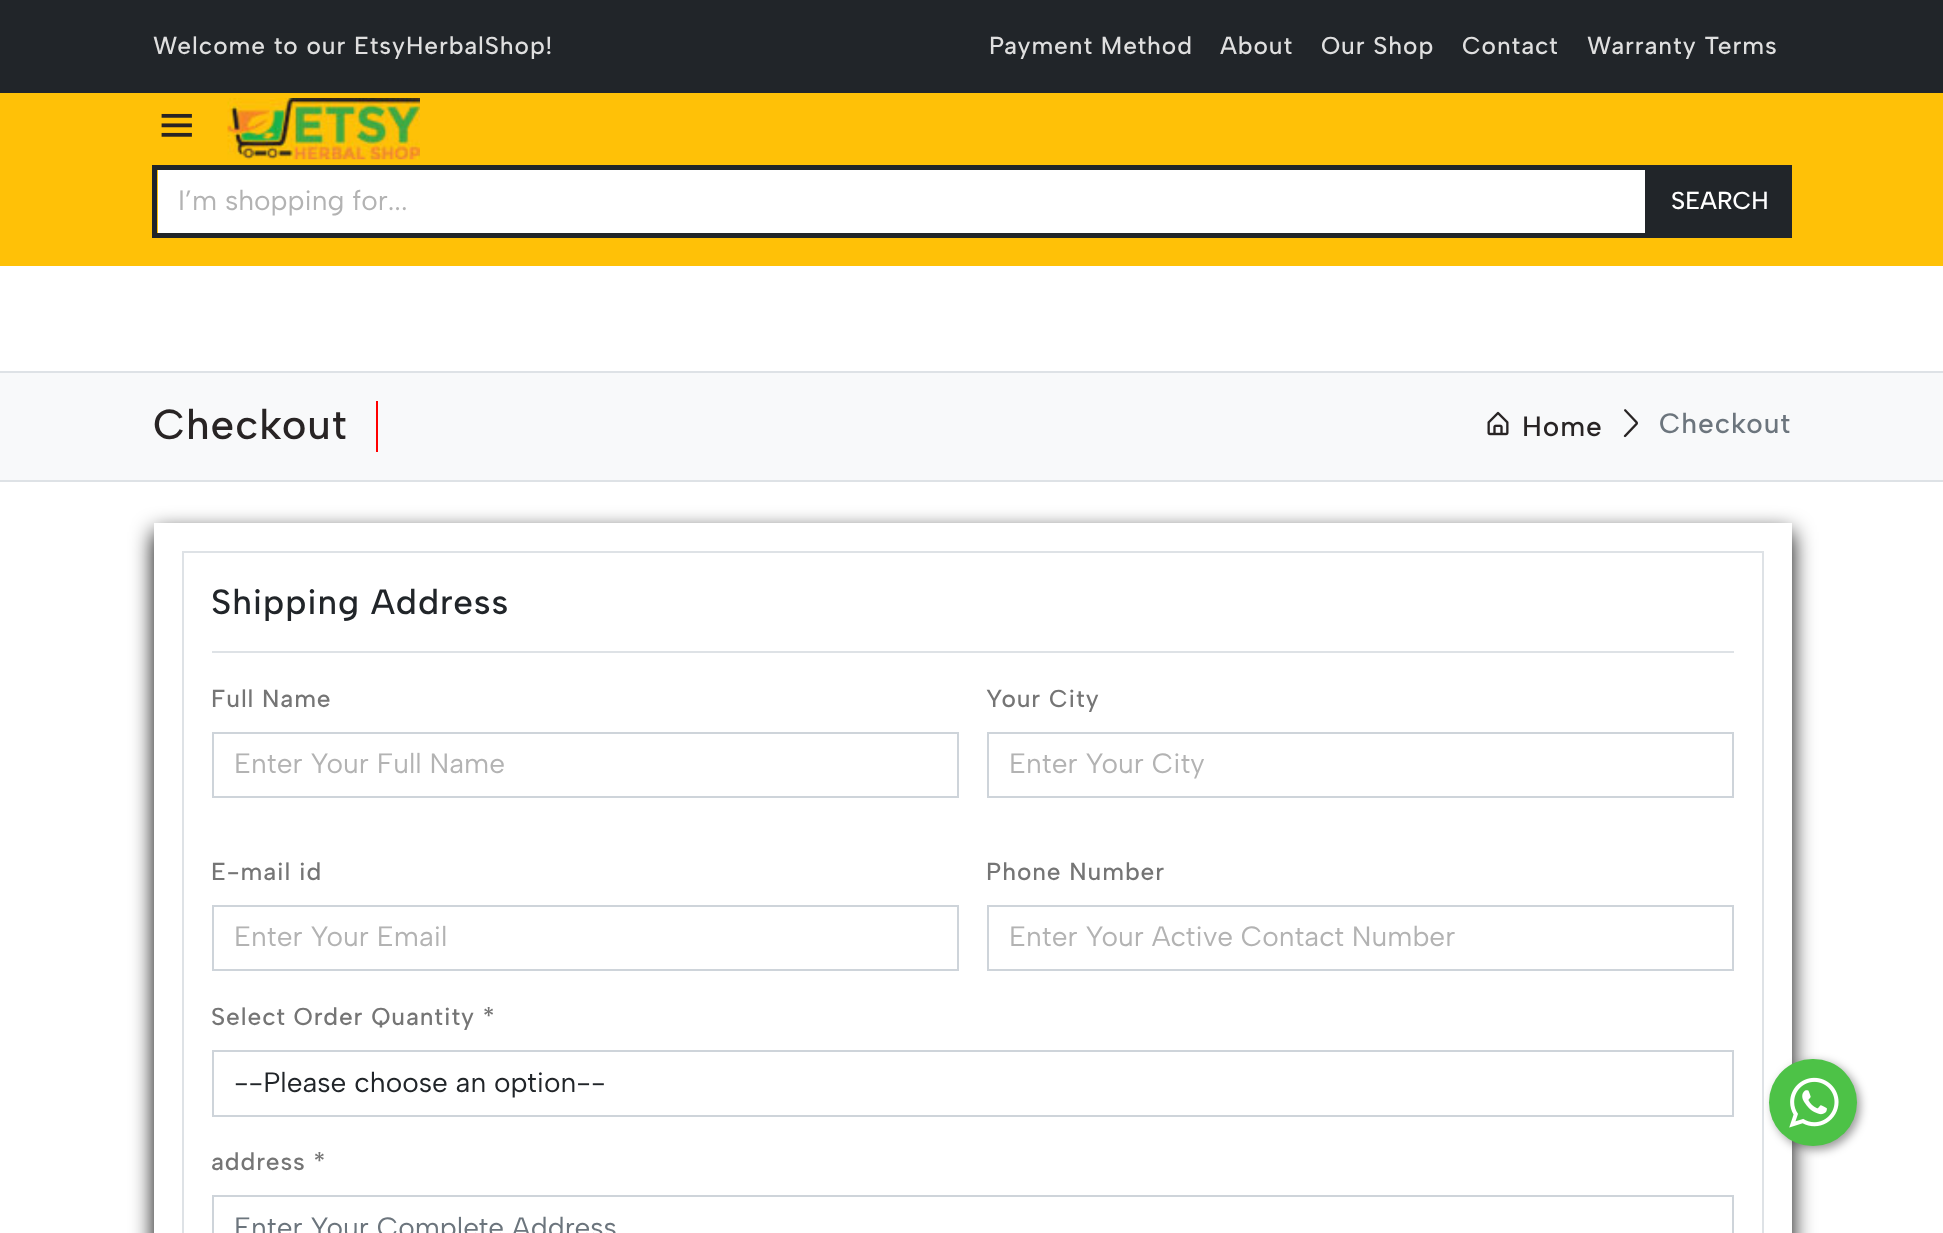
<svg xmlns="http://www.w3.org/2000/svg" width="1943" height="1233" viewBox="0 0 1943 1233">
  <rect width="100%" height="100%" fill="#fff"/>
  <path d="M0 0h1943v93H0z" fill="#212529"/>
  <path d="M0 93h1943v173H0z" fill="#ffc107"/>
  <image x="161" y="113" width="31" height="24" href="img/1.png"/>
  <image x="227" y="98" width="193" height="62" href="img/2.png"/>
  <path d="M158 170h1487v63H158z" fill="#fff"/>
  <path d="M154.5 167.5h1493v68H154.5z" fill="none" stroke="#212529" stroke-width="5"/>
  <path d="M1650 165h142v73H1650z" fill="#212529"/>
  <path d="M0 373h1943v107H0z" fill="#f8f9fa"/>
  <path d="M0 371h1943v2H0z" fill="#dee2e6"/>
  <path d="M0 480h1943v2H0z" fill="#dee2e6"/>
  <path d="M376 401h2v51H376z" fill="#f00"/>
  <image x="1487" y="411" width="22" height="25" href="img/3.png"/>
  <image x="1623" y="409" width="15" height="29" href="img/4.png"/>
  <path d="M154 532h1638v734H154z" fill="#000" filter="blur(11px)"/>
  <path d="M154 523h1638v710H154z" fill="#fff"/>
  <path d="M183 552h1580v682H183z" fill="none" stroke="#dee2e6" stroke-width="2"/>
  <path d="M212 651h1522v2H212z" fill="#dee2e6"/>
  <path d="M213 733h745v64H213z" fill="none" stroke="#ced4da" stroke-width="2"/>
  <path d="M988 733h745v64H988z" fill="none" stroke="#ced4da" stroke-width="2"/>
  <path d="M213 906h745v64H213z" fill="none" stroke="#ced4da" stroke-width="2"/>
  <path d="M988 906h745v64H988z" fill="none" stroke="#ced4da" stroke-width="2"/>
  <path d="M213 1051h1520v65H213z" fill="none" stroke="#ced4da" stroke-width="2"/>
  <path d="M213 1196h1520v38H213z" fill="none" stroke="#ced4da" stroke-width="2"/>
  <rect x="1773" y="1062" width="87" height="88" rx="43.5" fill="#00000066" filter="blur(5px)"/>
  <rect x="1769" y="1059" width="88" height="87" rx="43.5" fill="#4dc247"/>
  <image x="1789" y="1077" width="50" height="51" href="img/5.png"/>
  <g font-family="Albert Sans" font-size="24.5" font-weight="500" letter-spacing="0.9" fill="#dfdfdf">
    <text x="153" y="54">Welcome to our EtsyHerbalShop!</text>
    <text x="989" y="54">Payment Method</text>
    <text x="1220" y="54">About</text>
    <text x="1321" y="54">Our Shop</text>
    <text x="1462" y="54">Contact</text>
    <text x="1587" y="54">Warranty Terms</text>
  </g>
  <text x="178" y="210" font-family="Albert Sans" font-size="28" fill="#b3b3b3">I’m shopping for...</text>
  <text x="1671" y="209" font-family="Albert Sans" font-size="24.5" font-weight="500" fill="#fff">SEARCH</text>
  <text x="153" y="439" font-family="Albert Sans" font-size="42" font-weight="500" letter-spacing="0.9" fill="#282424">Checkout</text>
  <text x="1522" y="436" font-family="Albert Sans" font-size="28" font-weight="500" letter-spacing="0.9" fill="#282424">Home</text>
  <text x="1659" y="433" font-family="Albert Sans" font-size="28" font-weight="500" letter-spacing="0.9" fill="#6c757d">Checkout</text>
  <text x="211" y="614" font-family="Albert Sans" font-size="35" font-weight="500" letter-spacing="0.9" fill="#212529">Shipping Address</text>
  <text x="211" y="707" font-family="Albert Sans" font-size="24.5" font-weight="500" letter-spacing="0.9" fill="#757575">Full Name</text>
  <text x="234" y="773" font-family="Albert Sans" font-size="28" fill="#b3b3b3">Enter Your Full Name</text>
  <text x="986" y="707" font-family="Albert Sans" font-size="24.5" font-weight="500" letter-spacing="0.9" fill="#757575">Your City</text>
  <text x="1009" y="773" font-family="Albert Sans" font-size="28" fill="#b3b3b3">Enter Your City</text>
  <text x="211" y="880" font-family="Albert Sans" font-size="24.5" font-weight="500" letter-spacing="0.9" fill="#757575">E-mail id</text>
  <text x="234" y="946" font-family="Albert Sans" font-size="28" fill="#b3b3b3">Enter Your Email</text>
  <text x="986" y="880" font-family="Albert Sans" font-size="24.5" font-weight="500" letter-spacing="0.9" fill="#757575">Phone Number</text>
  <text x="1009" y="946" font-family="Albert Sans" font-size="28" fill="#b3b3b3">Enter Your Active Contact Number</text>
  <text x="211" y="1025" font-family="Albert Sans" font-size="24.5" font-weight="500" letter-spacing="0.9" fill="#757575">Select Order Quantity *</text>
  <text x="234" y="1092" font-family="Albert Sans" font-size="28" fill="#212529">--Please choose an option--</text>
  <text x="211" y="1170" font-family="Albert Sans" font-size="24.5" font-weight="500" letter-spacing="0.9" fill="#757575">address *</text>
  <text x="234" y="1237" font-family="Albert Sans" font-size="28" fill="#6c757d">Enter Your Complete Address</text>
</svg>
